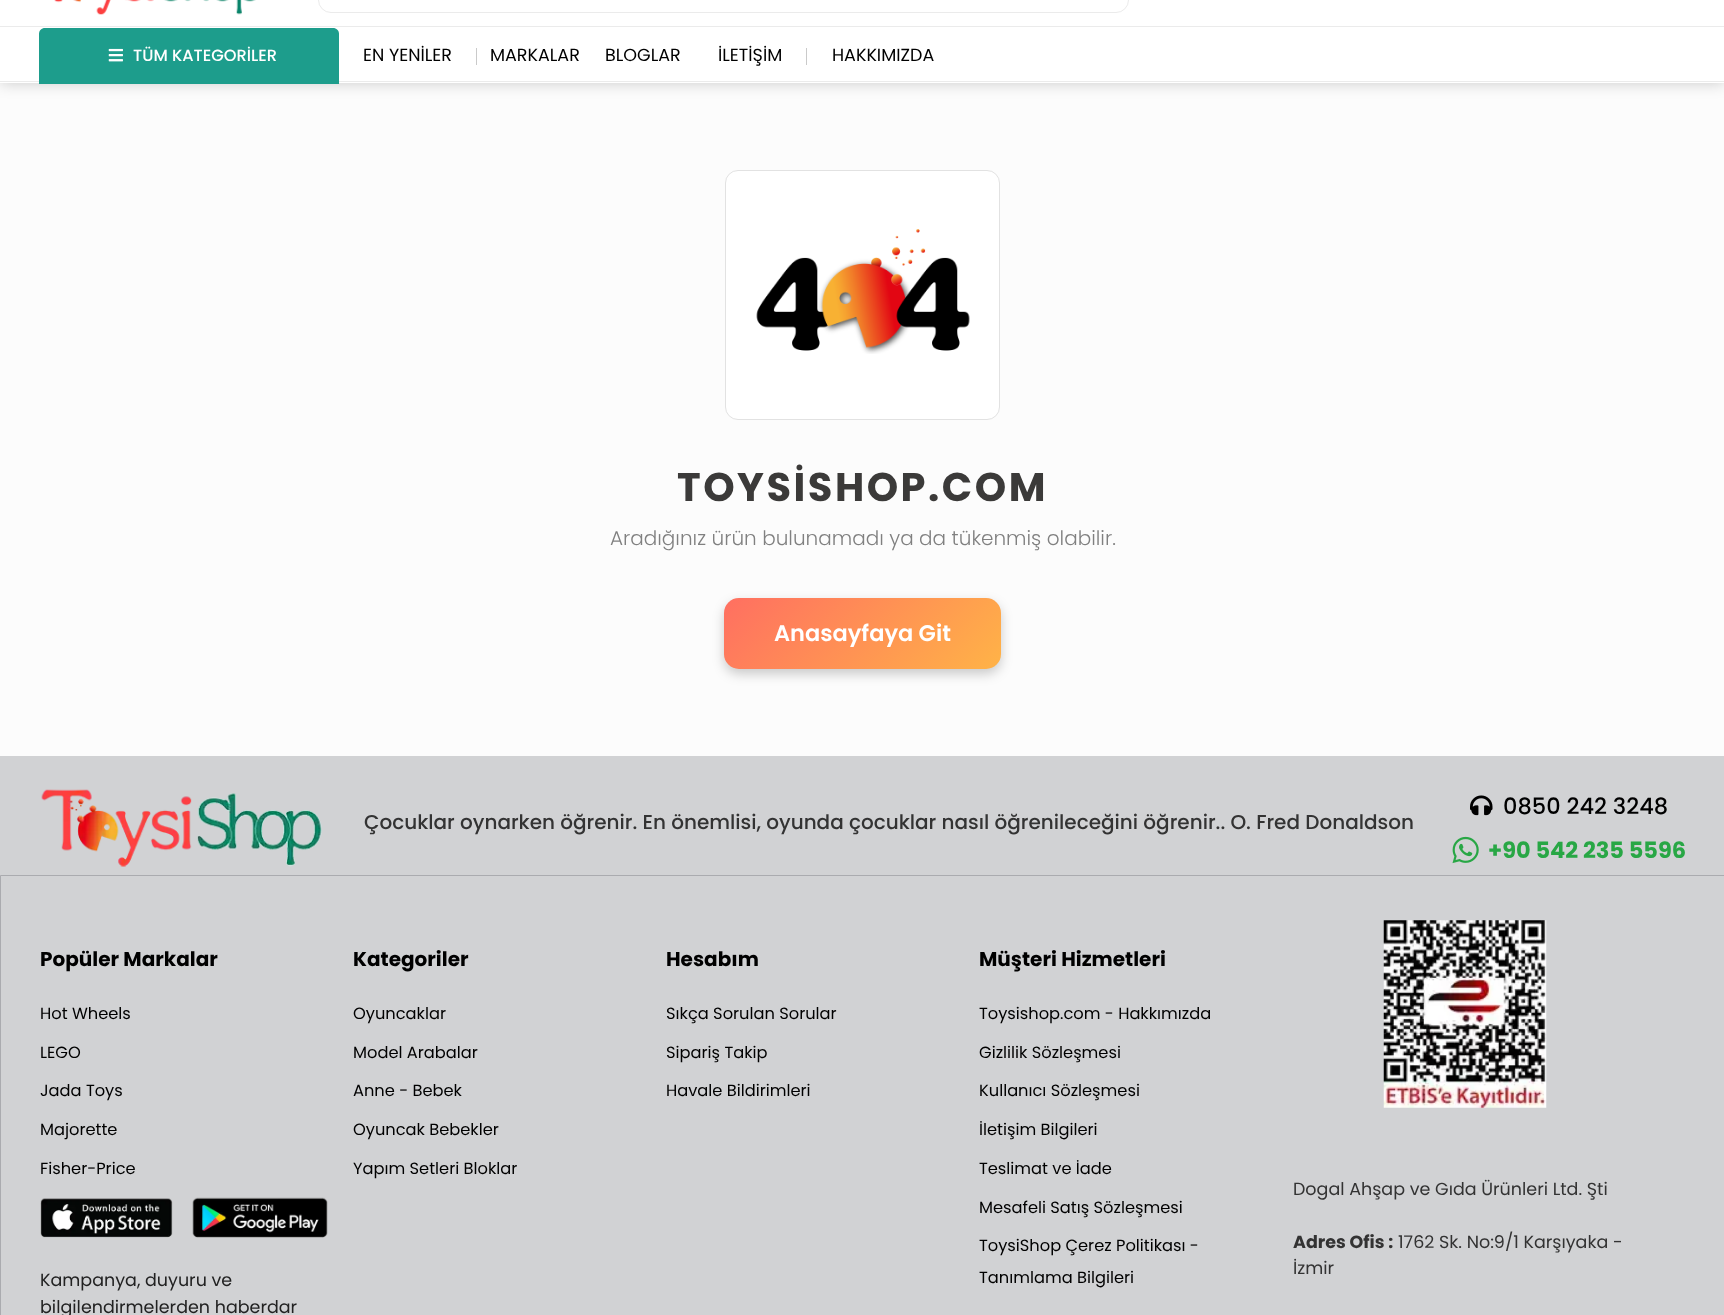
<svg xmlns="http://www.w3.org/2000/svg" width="1724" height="1315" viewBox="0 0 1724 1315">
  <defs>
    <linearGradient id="g1" gradientUnits="userSpaceOnUse" x1="775" y1="546" x2="950" y2="720"><stop offset="0" stop-color="#ff6f61"/><stop offset="1" stop-color="#ffb347"/></linearGradient>
  </defs>
  <rect width="100%" height="100%" fill="#fcfcfc"/>
  <path d="M0 -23h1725v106H0z" fill="#00000033" filter="blur(7.5px)"/>
  <path d="M0 0h1724v83H0z" fill="#fff"/>
  <image x="54" y="0" width="202" height="15" href="img/1.png"/>
  <rect x="318.5" y="-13.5" width="810" height="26" rx="12.5" fill="none" stroke="#ebebeb"/>
  <path d="M0 26h1724v1H0z" fill="#ebebeb"/>
  <path d="M0 81h1724v1H0z" fill="#ebebeb"/>
  <path d="M45 28H333C336.5 28 339 30.5 339 34V84H39V34C39 30.5 41.5 28 45 28Z" fill="#1d9d8c"/>
  <image x="108" y="48" width="15" height="14" href="img/2.png"/>
  <path d="M476 48h1v17H476z" fill="#cacaca"/>
  <path d="M806 48h1v17H806z" fill="#cacaca"/>
  <rect x="725.5" y="170.5" width="274" height="249" rx="12.5" fill="#fff" stroke="#e2e2e2"/>
  <image x="756" y="229" width="214" height="125" href="img/3.png"/>
  <rect x="724" y="603" width="277" height="71" rx="15" fill="#00000033" filter="blur(6px)"/>
  <rect x="724" y="598" width="277" height="71" rx="15" fill="url(#g1)"/>
  <path d="M0 756h1724v559H0z" fill="#d1d2d4"/>
  <image x="41" y="789" width="281" height="78" href="img/4.png"/>
  <image x="1470" y="795" width="23" height="21" href="img/5.png"/>
  <image x="1452" y="836" width="27" height="28" href="img/6.png"/>
  <path d="M0.5 875.5h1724v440H0.5z" fill="none" stroke="#aaabaf"/>
  <image x="40" y="1198" width="133" height="40" href="img/7.png"/>
  <image x="192" y="1197" width="136" height="41" href="img/8.png"/>
  <image x="1383" y="920" width="164" height="188" href="img/9.png"/>
  <text x="133" y="61" font-family="Poppins" font-size="16.25" font-weight="500" fill="#fff">TÜM KATEGORİLER</text>
  <g font-family="Poppins" font-size="17.5" fill="#000">
    <text x="363" y="61">EN YENİLER</text>
    <text x="490" y="61">MARKALAR</text>
    <text x="605" y="61">BLOGLAR</text>
    <text x="718" y="61">İLETİŞİM</text>
    <text x="832" y="61">HAKKIMIZDA</text>
  </g>
  <text x="677" y="501" font-family="Poppins" font-size="40" font-weight="bold" letter-spacing="2.5" fill="#3b3a39">TOYSİSHOP.COM</text>
  <text x="610" y="545" font-family="Poppins" font-size="20" font-weight="300" fill="#808080">Aradığınız ürün bulunamadı ya da tükenmiş olabilir.</text>
  <text x="774" y="641" font-family="Poppins" font-size="22.5" font-weight="600" fill="#fff">Anasayfaya Git</text>
  <text x="364" y="829" font-family="Poppins" font-size="20" font-weight="500" fill="#333">Çocuklar oynarken öğrenir. En önemlisi, oyunda çocuklar nasıl öğrenileceğini öğrenir.. O. Fred Donaldson</text>
  <text x="1503" y="814" font-family="Poppins" font-size="22.5" font-weight="500" fill="#000">0850 242 3248</text>
  <text x="1488" y="858" font-family="Poppins" font-size="22.5" font-weight="bold" fill="#28a745">+90 542 235 5596</text>
  <text x="40" y="966" font-family="Poppins" font-size="20" font-weight="bold" fill="#000">Popüler Markalar</text>
  <g font-family="Poppins" font-size="16.25" fill="#000">
    <text x="40" y="1019">Hot Wheels</text>
    <text x="40" y="1058">LEGO</text>
    <text x="40" y="1096">Jada Toys</text>
    <text x="40" y="1135">Majorette</text>
    <text x="40" y="1174">Fisher-Price</text>
  </g>
  <g font-family="Poppins" font-size="17.5" fill="#222">
    <text x="40" y="1286">Kampanya, duyuru ve</text>
    <text x="40" y="1313">bilgilendirmelerden haberdar</text>
  </g>
  <text x="353" y="966" font-family="Poppins" font-size="20" font-weight="bold" fill="#000">Kategoriler</text>
  <g font-family="Poppins" font-size="16.25" fill="#000">
    <text x="353" y="1019">Oyuncaklar</text>
    <text x="353" y="1058">Model Arabalar</text>
    <text x="353" y="1096">Anne - Bebek</text>
    <text x="353" y="1135">Oyuncak Bebekler</text>
    <text x="353" y="1174">Yapım Setleri Bloklar</text>
  </g>
  <text x="666" y="966" font-family="Poppins" font-size="20" font-weight="bold" fill="#000">Hesabım</text>
  <g font-family="Poppins" font-size="16.25" fill="#000">
    <text x="666" y="1019">Sıkça Sorulan Sorular</text>
    <text x="666" y="1058">Sipariş Takip</text>
    <text x="666" y="1096">Havale Bildirimleri</text>
  </g>
  <text x="979" y="966" font-family="Poppins" font-size="20" font-weight="bold" fill="#000">Müşteri Hizmetleri</text>
  <g font-family="Poppins" font-size="16.25" fill="#000">
    <text x="979" y="1019">Toysishop.com - Hakkımızda</text>
    <text x="979" y="1058">Gizlilik Sözleşmesi</text>
    <text x="979" y="1096">Kullanıcı Sözleşmesi</text>
    <text x="979" y="1135">İletişim Bilgileri</text>
    <text x="979" y="1174">Teslimat ve İade</text>
    <text x="979" y="1213">Mesafeli Satış Sözleşmesi</text>
    <text x="979" y="1251">ToysiShop Çerez Politikası -</text>
    <text x="979" y="1283">Tanımlama Bilgileri</text>
  </g>
  <text x="1293" y="1195" font-family="Poppins" font-size="17.5" fill="#333">Dogal Ahşap ve Gıda Ürünleri Ltd. Şti</text>
  <text x="1293" y="1248" font-family="Poppins" font-size="17.5" font-weight="bold" fill="#333">Adres Ofis :</text>
  <g font-family="Poppins" font-size="17.5" fill="#333">
    <text x="1398" y="1248">1762 Sk. No:9/1 Karşıyaka -</text>
    <text x="1293" y="1274">İzmir</text>
  </g>
</svg>
